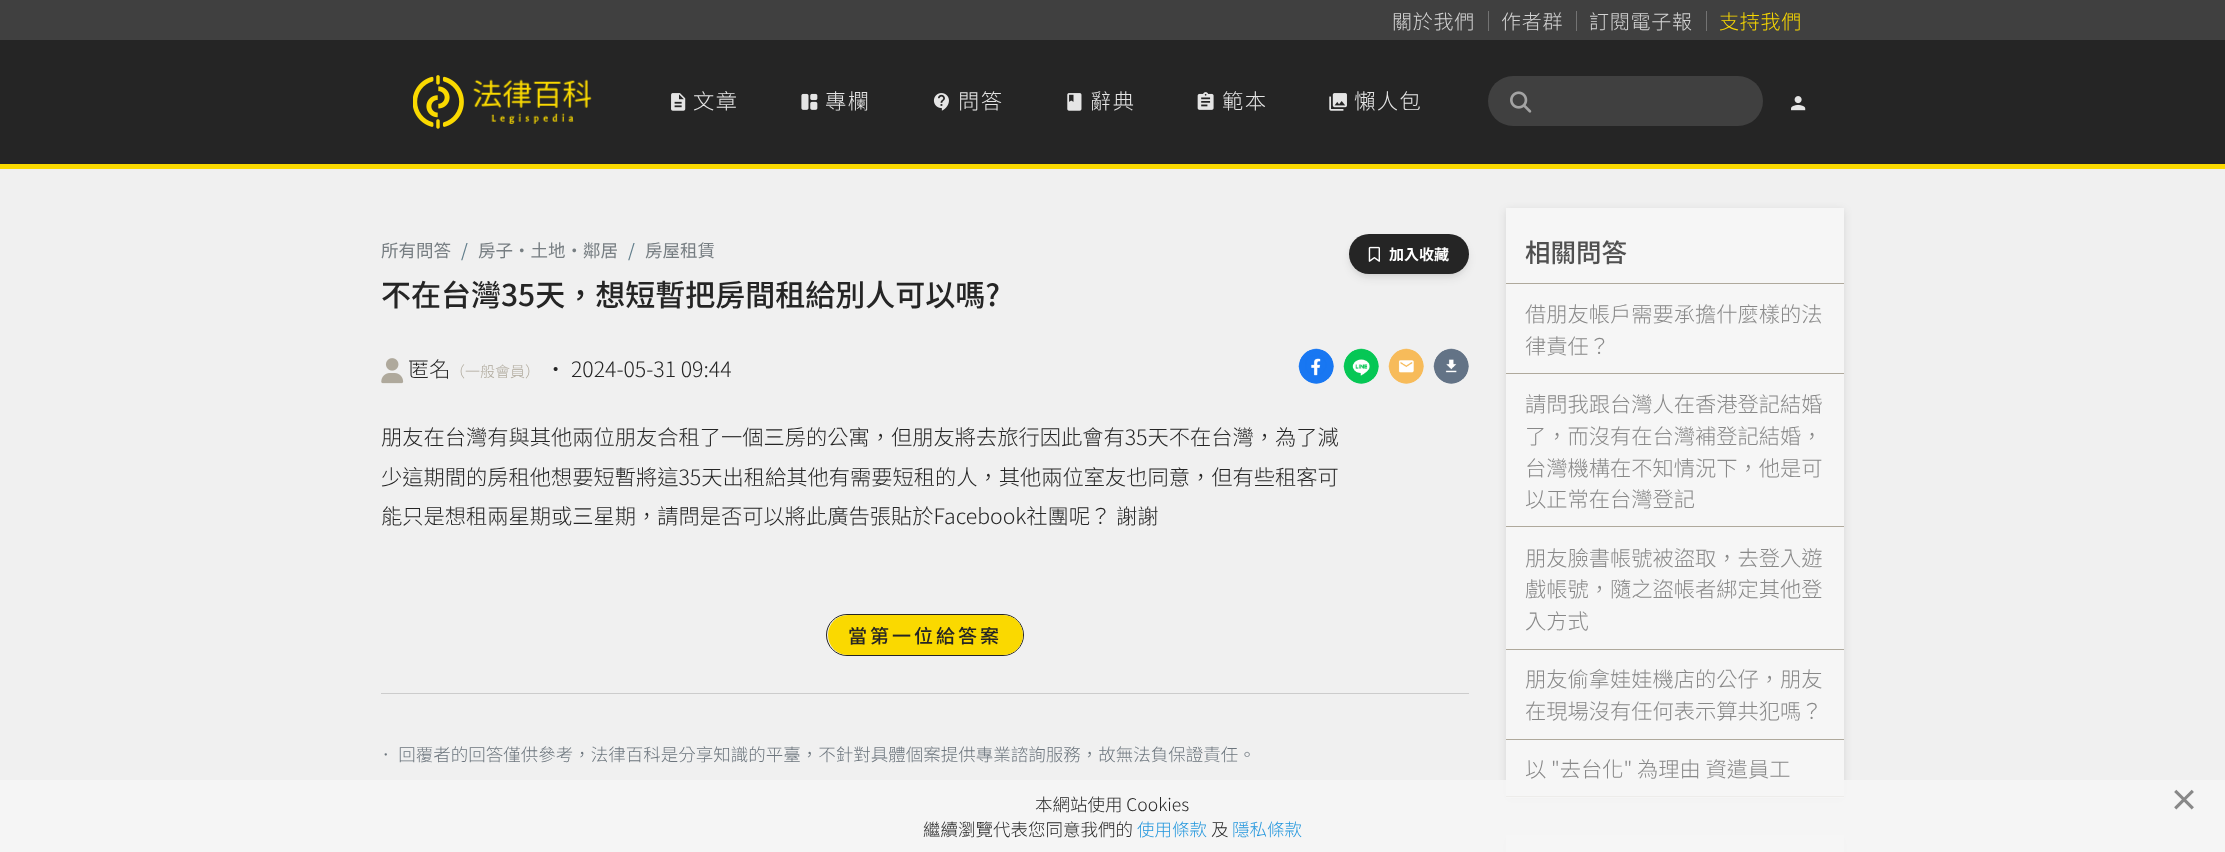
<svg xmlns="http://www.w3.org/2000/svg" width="2225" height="852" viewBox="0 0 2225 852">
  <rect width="100%" height="100%" fill="#f0f0f0"/>
  <path d="M0 0h2225v40H0z" fill="#404040"/>
  <path d="M1488 11h1v20H1488z" fill="#737373"/>
  <path d="M1576 11h1v20H1576z" fill="#737373"/>
  <path d="M1706 11h1v20H1706z" fill="#737373"/>
  <path d="M0 40h2225v124H0z" fill="#252525"/>
  <path d="M0 164h2225v5H0z" fill="#fad900"/>
  <image x="413" y="75" width="51" height="54" href="img/1.png"/>
  <image x="473" y="79" width="119" height="45" href="img/2.png"/>
  <image x="671" y="93" width="15" height="18" href="img/3.png"/>
  <image x="801" y="93" width="17" height="17" href="img/4.png"/>
  <image x="933" y="93" width="16" height="18" href="img/5.png"/>
  <image x="1067" y="93" width="15" height="18" href="img/6.png"/>
  <image x="1197" y="92" width="17" height="18" href="img/7.png"/>
  <image x="1329" y="93" width="18" height="18" href="img/8.png"/>
  <rect x="1488" y="76" width="275" height="50" rx="25" fill="#404040"/>
  <image x="1510" y="91" width="22" height="22" href="img/9.png"/>
  <image x="1791" y="96" width="15" height="15" href="img/10.png"/>
  <rect x="1351" y="239" width="115" height="35" rx="17.5" fill="#2121211a" filter="blur(2.5px)"/>
  <rect x="1350" y="240" width="118" height="38" rx="19" fill="#2121211a" filter="blur(4px)"/>
  <rect x="1349" y="234" width="120" height="40" rx="20" fill="#252525"/>
  <image x="1368" y="246" width="12" height="16" href="img/11.png"/>
  <image x="381" y="358" width="23" height="26" href="img/12.png"/>
  <image x="1298" y="348" width="36" height="36" href="img/13.png"/>
  <image x="1343" y="348" width="36" height="36" href="img/14.png"/>
  <image x="1388" y="348" width="36" height="36" href="img/15.png"/>
  <image x="1433" y="348" width="36" height="36" href="img/16.png"/>
  <rect x="826.5" y="614.5" width="197" height="41" rx="20.5" fill="none" stroke="#252525"/>
  <rect x="828" y="615" width="195" height="40" rx="20" fill="#fad900"/>
  <path d="M381 693h1088v1H381z" fill="#ccc"/>
  <path d="M1506 210h338v590H1506z" fill="#0000001a" filter="blur(4.5px)"/>
  <path d="M1506 208h338v590H1506z" fill="#f6f6f6"/>
  <path d="M1506 283h338v1H1506z" fill="#afa99c"/>
  <path d="M1506 373h338v1H1506z" fill="#afa99c"/>
  <path d="M1506 526h338v1H1506z" fill="#afa99c"/>
  <path d="M1506 649h338v1H1506z" fill="#afa99c"/>
  <path d="M1506 739h338v1H1506z" fill="#afa99c"/>
  <path d="M1506 796h338v1H1506z" fill="#afa99c"/>
  <path d="M1506 838h338v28H1506z" fill="#0000001a" filter="blur(4.5px)"/>
  <path d="M1506 835h338v17H1506z" fill="#f6f6f6"/>
  <path d="M0 780h2225v72H0z" fill="#f6f6f6de"/>
  <g font-family="Noto Sans TC" font-size="20" font-weight="300" letter-spacing="0.75" fill="#d4d4d4">
    <text x="1392" y="29">關於我們</text>
    <text x="1501" y="29">作者群</text>
    <text x="1589" y="29">訂閱電子報</text>
  </g>
  <text x="1719" y="29" font-family="Noto Sans TC" font-size="20" font-weight="300" letter-spacing="0.75" fill="#fad900">支持我們</text>
  <g font-family="Noto Sans TC" font-size="21.25" font-weight="300" letter-spacing="1.5" fill="#e5e5e5">
    <text x="693" y="109">文章</text>
    <text x="825" y="109">專欄</text>
    <text x="958" y="109">問答</text>
    <text x="1090" y="109">辭典</text>
    <text x="1222" y="109">範本</text>
    <text x="1354" y="109">懶人包</text>
  </g>
  <text x="381" y="257" font-family="Noto Sans TC" font-size="17.5" fill="#777e82">所有問答</text>
  <text x="461" y="257" font-family="Noto Sans TC" font-size="17.5" fill="#607d8b">/</text>
  <text x="478" y="257" font-family="Noto Sans TC" font-size="17.5" fill="#777e82">房子‧土地‧鄰居</text>
  <text x="628" y="257" font-family="Noto Sans TC" font-size="17.5" fill="#607d8b">/</text>
  <text x="645" y="257" font-family="Noto Sans TC" font-size="17.5" fill="#777e82">房屋租賃</text>
  <text x="1389" y="260" font-family="Noto Sans TC" font-size="15" font-weight="bold" fill="#fff">加入收藏</text>
  <text x="381" y="306" font-family="Noto Sans TC" font-size="30" font-weight="500" fill="#252525">不在台灣35天，想短暫把房間租給別人可以嗎?</text>
  <text x="408" y="377" font-family="Noto Sans TC" font-size="21.25" font-weight="300" fill="#252525">匿名</text>
  <text x="450" y="377" font-family="Noto Sans TC" font-size="15" font-weight="300" fill="#afa99c">（一般會員）</text>
  <g font-family="Noto Sans TC" font-size="21.25" font-weight="300" fill="#252525">
    <text x="545" y="377">‧ 2024-05-31 09:44</text>
    <text x="381" y="445">朋友在台灣有與其他兩位朋友合租了一個三房的公寓，但朋友將去旅行因此會有35天不在台灣，為了減</text>
    <text x="381" y="485">少這期間的房租他想要短暫將這35天出租給其他有需要短租的人，其他兩位室友也同意，但有些租客可</text>
    <text x="381" y="524">能只是想租兩星期或三星期，請問是否可以將此廣告張貼於Facebook社團呢？ 謝謝</text>
  </g>
  <text x="848" y="643" font-family="Noto Sans TC" font-size="19" font-weight="500" letter-spacing="3" fill="#252525">當第一位給答案</text>
  <text x="377" y="761" font-family="Noto Sans TC" font-size="17.5" font-weight="300" fill="#6c757d">． 回覆者的回答僅供參考，法律百科是分享知識的平臺，不針對具體個案提供專業諮詢服務，故無法負保證責任。</text>
  <text x="1525" y="262" font-family="Noto Sans TC" font-size="25.5" font-weight="500" fill="#505050">相關問答</text>
  <g font-family="Noto Sans TC" font-size="21.25" font-weight="300" fill="#888">
    <text x="1525" y="322">借朋友帳戶需要承擔什麼樣的法</text>
    <text x="1525" y="354">律責任？</text>
    <text x="1525" y="412">請問我跟台灣人在香港登記結婚</text>
    <text x="1525" y="444">了，而沒有在台灣補登記結婚，</text>
    <text x="1525" y="476">台灣機構在不知情況下，他是可</text>
    <text x="1525" y="507">以正常在台灣登記</text>
    <text x="1525" y="566">朋友臉書帳號被盜取，去登入遊</text>
    <text x="1525" y="597">戲帳號，隨之盜帳者綁定其他登</text>
    <text x="1525" y="629">入方式</text>
    <text x="1525" y="687">朋友偷拿娃娃機店的公仔，朋友</text>
    <text x="1525" y="719">在現場沒有任何表示算共犯嗎？</text>
    <text x="1525" y="777">以 "去台化" 為理由 資遣員工</text>
  </g>
  <text x="1035" y="811" font-family="Noto Sans TC" font-size="17.5" font-weight="300" fill="#252525">本網站使用 Cookies</text>
  <text x="2169" y="811" font-family="Noto Sans TC" font-size="30" font-weight="bold" fill="#888">×</text>
  <text x="923" y="836" font-family="Noto Sans TC" font-size="17.5" font-weight="300" fill="#252525">繼續瀏覽代表您同意我們的</text>
  <text x="1137" y="836" font-family="Noto Sans TC" font-size="17.5" font-weight="300" fill="#2497dd">使用條款</text>
  <text x="1211" y="836" font-family="Noto Sans TC" font-size="17.5" font-weight="300" fill="#252525">及</text>
  <text x="1232" y="836" font-family="Noto Sans TC" font-size="17.5" font-weight="300" fill="#2497dd">隱私條款</text>
</svg>
